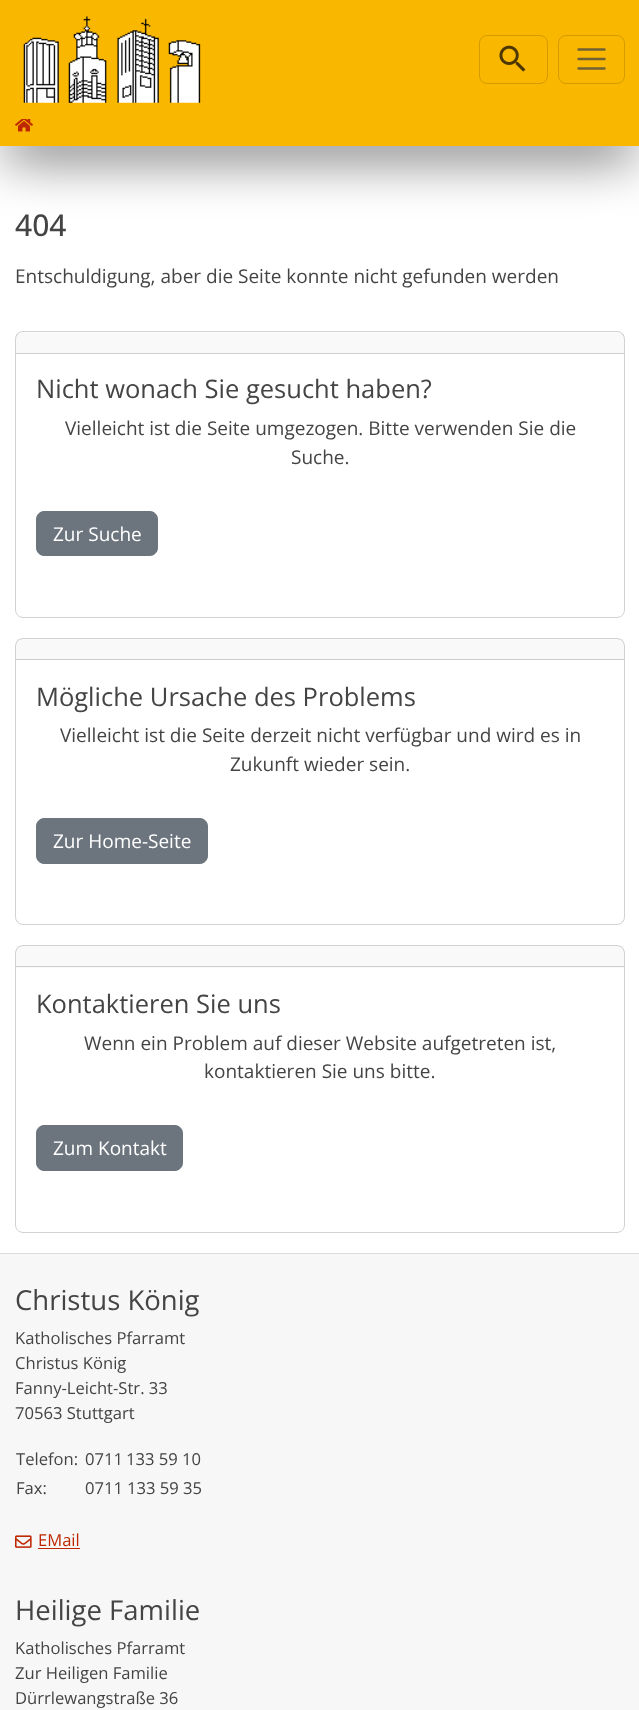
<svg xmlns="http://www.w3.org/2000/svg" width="639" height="1710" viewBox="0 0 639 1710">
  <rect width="100%" height="100%" fill="#fff"/>
  <path d="M5 125h630v29H5z" fill="#000000bf" filter="blur(27px)"/>
  <path d="M0 0h639v146H0z" fill="#fab700"/>
  <image x="15" y="119" width="18" height="13" href="img/1.png"/>
  <image x="23" y="16" width="178" height="87" href="img/2.png"/>
  <rect x="479.5" y="35.5" width="68" height="48" rx="7.5" fill="none" stroke="#d59c00"/>
  <image x="499" y="45" width="27" height="27" href="img/3.png"/>
  <rect x="558.5" y="35.5" width="66" height="48" rx="7.5" fill="none" stroke="#d59c00"/>
  <path d="M578.5 49.5H604.5M578.5 59H604.5M578.5 68.5H604.5" fill="none" stroke="#726133" stroke-width="2.4" stroke-linecap="round"/>
  <rect x="15.5" y="331.5" width="609" height="286" rx="7.5" fill="none" stroke="#d2d2d2"/>
  <path d="M16 333h608v20H16z" fill="#44444408"/>
  <path d="M16 353h608v1H16z" fill="#cdcdcd"/>
  <rect x="36.5" y="511.5" width="121" height="44" rx="7.5" fill="#6c757d" stroke="#6c757d"/>
  <rect x="15.5" y="638.5" width="609" height="286" rx="7.5" fill="none" stroke="#d2d2d2"/>
  <path d="M16 639h608v20H16z" fill="#44444408"/>
  <path d="M16 659h608v1H16z" fill="#cdcdcd"/>
  <rect x="36.5" y="818.5" width="171" height="45" rx="7.5" fill="#6c757d" stroke="#6c757d"/>
  <rect x="15.5" y="945.5" width="609" height="287" rx="7.5" fill="none" stroke="#d2d2d2"/>
  <path d="M16 946h608v22H16z" fill="#44444408"/>
  <path d="M16 966h608v1H16z" fill="#cdcdcd"/>
  <rect x="36.5" y="1125.5" width="146" height="45" rx="7.5" fill="#6c757d" stroke="#6c757d"/>
  <path d="M0 1254h639v456H0z" fill="#f7f7f7"/>
  <path d="M0 1253h639v1H0z" fill="#ddd"/>
  <image x="15" y="1535" width="17" height="13" href="img/4.png"/>
  <path d="M38 1548h42v1H38z" fill="#be2700"/>
  <text x="15" y="236" font-family="Open Sans" font-size="30" font-weight="500" fill="#444">404</text>
  <text x="15" y="283" font-family="Open Sans" font-size="19" fill="#444">Entschuldigung, aber die Seite konnte nicht gefunden werden</text>
  <text x="36" y="398" font-family="Open Sans" font-size="25.5" fill="#444">Nicht wonach Sie gesucht haben?</text>
  <g font-family="Open Sans" font-size="19" fill="#444">
    <text x="65" y="435">Vielleicht ist die Seite umgezogen. Bitte verwenden Sie die</text>
    <text x="291" y="464">Suche.</text>
  </g>
  <text x="53" y="541" font-family="Open Sans" font-size="19" fill="#fff">Zur Suche</text>
  <text x="36" y="706" font-family="Open Sans" font-size="25.5" fill="#444">Mögliche Ursache des Problems</text>
  <g font-family="Open Sans" font-size="19" fill="#444">
    <text x="60" y="742">Vielleicht ist die Seite derzeit nicht verfügbar und wird es in</text>
    <text x="230" y="771">Zukunft wieder sein.</text>
  </g>
  <text x="53" y="848" font-family="Open Sans" font-size="19" fill="#fff">Zur Home-Seite</text>
  <text x="36" y="1013" font-family="Open Sans" font-size="25.5" fill="#444">Kontaktieren Sie uns</text>
  <g font-family="Open Sans" font-size="19" fill="#444">
    <text x="84" y="1050">Wenn ein Problem auf dieser Website aufgetreten ist,</text>
    <text x="204" y="1078">kontaktieren Sie uns bitte.</text>
  </g>
  <text x="53" y="1155" font-family="Open Sans" font-size="19" fill="#fff">Zum Kontakt</text>
  <text x="15" y="1310" font-family="Open Sans" font-size="27.5" fill="#444">Christus König</text>
  <g font-family="Open Sans" font-size="16.6" fill="#444">
    <text x="15" y="1344">Katholisches Pfarramt</text>
    <text x="15" y="1369">Christus König</text>
    <text x="15" y="1394">Fanny-Leicht-Str. 33</text>
    <text x="15" y="1419">70563 Stuttgart</text>
    <text x="16" y="1465">Telefon:</text>
    <text x="85" y="1465">0711</text>
    <text x="126" y="1465">133 59 10</text>
    <text x="16" y="1494">Fax:</text>
    <text x="85" y="1494">0711</text>
    <text x="127" y="1494">133 59 35</text>
  </g>
  <text x="38" y="1546" font-family="Open Sans" font-size="16.6" fill="#be2700">EMail</text>
  <text x="15" y="1620" font-family="Open Sans" font-size="27.5" fill="#444">Heilige Familie</text>
  <g font-family="Open Sans" font-size="16.6" fill="#444">
    <text x="15" y="1654">Katholisches Pfarramt</text>
    <text x="15" y="1679">Zur Heiligen Familie</text>
    <text x="15" y="1704">Dürrlewangstraße 36</text>
  </g>
</svg>
